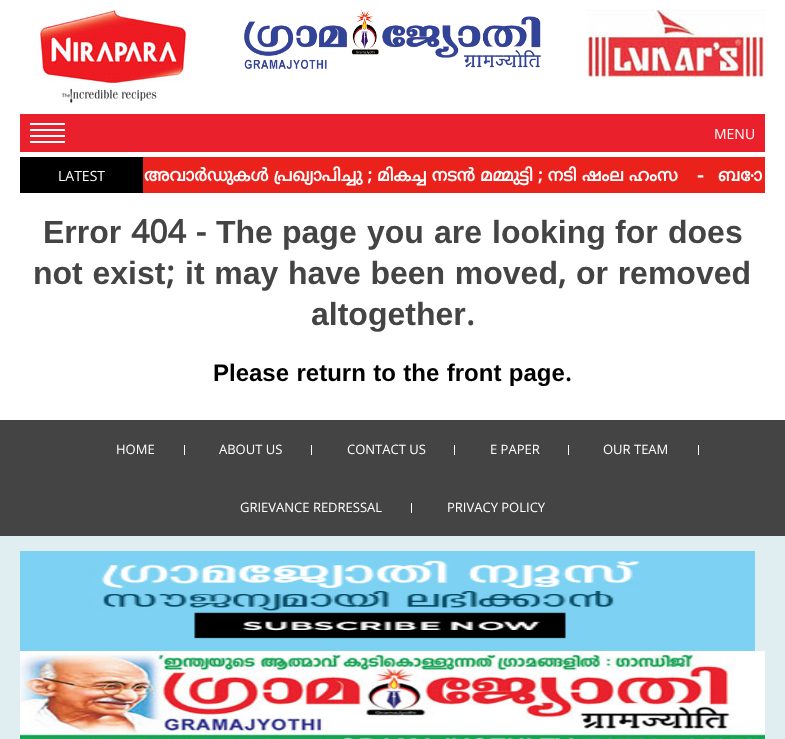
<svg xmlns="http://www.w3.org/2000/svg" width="785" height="739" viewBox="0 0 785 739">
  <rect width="100%" height="100%" fill="#fff"/>
  <image x="40" y="10" width="146" height="94" href="img/1.png"/>
  <image x="244" y="10" width="297" height="59" href="img/2.png"/>
  <image x="587" y="10" width="178" height="68" href="img/3.png"/>
  <path d="M20 114h745v38H20z" fill="#ea202c"/>
  <path d="M30 123h35v2H30z" fill="#fff"/>
  <path d="M30 129h35v2H30z" fill="#fff"/>
  <path d="M30 135h35v2H30z" fill="#fff"/>
  <path d="M30 141h35v2H30z" fill="#fff"/>
  <path d="M20 157h123v36H20z" fill="#000"/>
  <path d="M143 157h622v36H143z" fill="#eb221b"/>
  <path d="M0 420h785v116H0z" fill="#444"/>
  <path d="M184 445h1v10H184z" fill="#fff"/>
  <path d="M311 445h1v10H311z" fill="#fff"/>
  <path d="M454 445h1v10H454z" fill="#fff"/>
  <path d="M568 445h1v10H568z" fill="#fff"/>
  <path d="M698 445h1v10H698z" fill="#fff"/>
  <path d="M411 503h1v10H411z" fill="#fff"/>
  <path d="M0 536h785v203H0z" fill="#e0eef1"/>
  <image x="20" y="551" width="735" height="100" href="img/4.png"/>
  <image x="20" y="651" width="745" height="88" href="img/5.png"/>
  <g font-family="Open Sans" font-size="14" fill="#fff">
    <text x="714" y="139">MENU</text>
    <text x="58" y="181">LATEST</text>
  </g>
  <text x="144" y="181" font-family="Noto Sans Malayalam" font-size="17" font-weight="bold" fill="#fff">അവാർഡുകൾ പ്രഖ്യാപിച്ചു ; മികച്ച നടന്‍ മമ്മുട്ടി ; നടി ഷംല ഹംസ</text>
  <text x="697" y="182" font-family="Noto Sans Malayalam" font-size="20" font-weight="bold" fill="#fff">-</text>
  <text x="718" y="181" font-family="Noto Sans Malayalam" font-size="17" font-weight="bold" fill="#fff">ബോ</text>
  <text x="43" y="243" font-family="Liberation Sans" font-size="32" font-weight="bold" fill="#444">Error</text>
  <text x="131" y="243" font-family="Noto Sans Malayalam" font-size="32" font-weight="bold" fill="#444">404 -</text>
  <g font-family="Liberation Sans" font-size="32" font-weight="bold" fill="#444">
    <text x="216" y="243">The</text>
    <text x="282" y="243">page</text>
    <text x="367" y="243">you</text>
    <text x="434" y="243">are</text>
    <text x="492" y="243">looking</text>
    <text x="615" y="243">for</text>
    <text x="668" y="243">does</text>
    <text x="33" y="284" word-spacing="0.75">not exist</text>
  </g>
  <text x="166" y="284" font-family="Noto Sans Malayalam" font-size="32" font-weight="bold" fill="#444">;</text>
  <text x="185" y="284" word-spacing="0.75" font-family="Liberation Sans" font-size="32" font-weight="bold" fill="#444">it may have been moved</text>
  <text x="558" y="284" font-family="Noto Sans Malayalam" font-size="32" font-weight="bold" fill="#444">,</text>
  <g font-family="Liberation Sans" font-size="32" font-weight="bold" fill="#444">
    <text x="576" y="284" word-spacing="0.75">or removed</text>
    <text x="311" y="325">altogether</text>
  </g>
  <text x="466" y="325" font-family="Noto Sans Malayalam" font-size="32" font-weight="bold" fill="#444">.</text>
  <text x="213" y="381" word-spacing="0.75" font-family="Liberation Sans" font-size="24" font-weight="bold" fill="#000">Please return to the front page</text>
  <text x="565" y="381" font-family="Noto Sans Malayalam" font-size="24" font-weight="bold" fill="#000">.</text>
  <g font-family="Open Sans" font-size="13" fill="#fff">
    <text x="116" y="454">HOME</text>
    <text x="219" y="454">ABOUT US</text>
    <text x="347" y="454">CONTACT US</text>
    <text x="490" y="454">E PAPER</text>
    <text x="603" y="454">OUR TEAM</text>
    <text x="240" y="512">GRIEVANCE REDRESSAL</text>
    <text x="447" y="512">PRIVACY POLICY</text>
  </g>
</svg>
